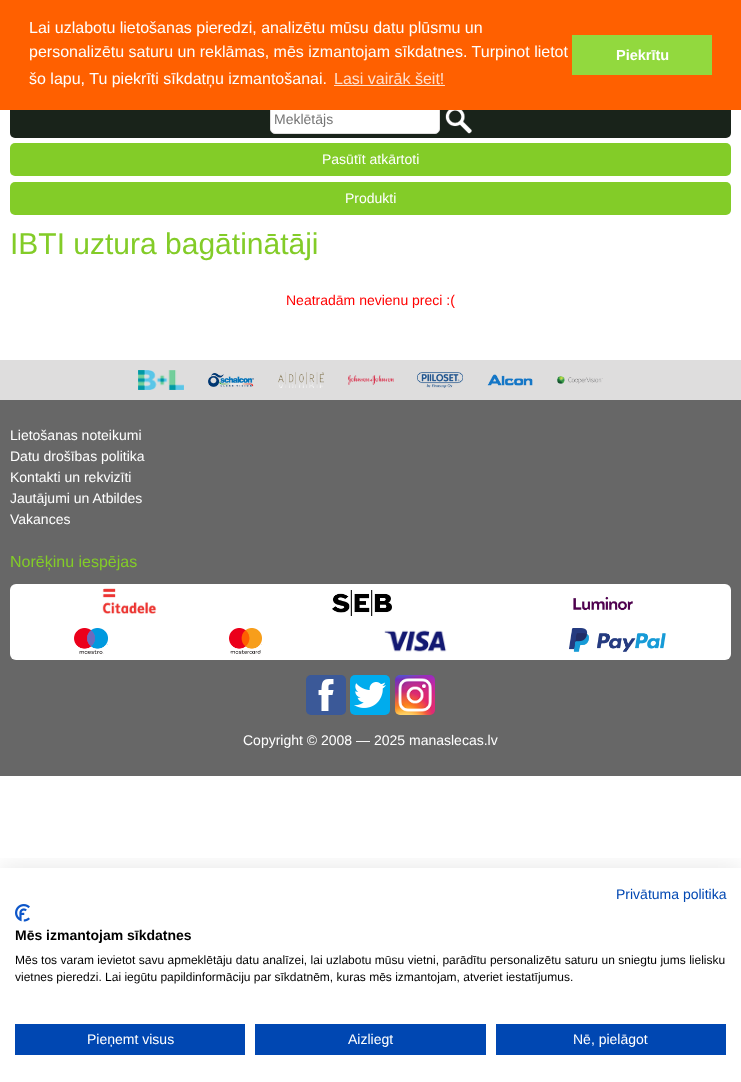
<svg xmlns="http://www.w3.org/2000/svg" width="741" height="1082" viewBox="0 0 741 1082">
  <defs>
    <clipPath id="clip1"><path d="M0 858h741v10H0z"/></clipPath>
  </defs>
  <rect width="100%" height="100%" fill="#fff"/>
  <rect x="10" y="101" width="721" height="37" rx="5" fill="#19231a"/>
  <rect x="270.5" y="105.5" width="169" height="28" rx="4.5" fill="#fff" stroke="#dedddd"/>
  <path d="M0 0h741v110H0z" fill="#ff6000"/>
  <path d="M334 85h111v1H334z" fill="#ffdfcc"/>
  <path d="M572 35h140v40H572z" fill="#92d93e"/>
  <image x="445" y="110" width="27" height="24" href="img/1.png"/>
  <rect x="10" y="143" width="721" height="33" rx="5" fill="#83cc28"/>
  <rect x="10" y="182" width="721" height="33" rx="5" fill="#83cc28"/>
  <path d="M0 360h741v40H0z" fill="#dedddd"/>
  <image x="138" y="370" width="46" height="20" href="img/2.png"/>
  <image x="208" y="373" width="46" height="14" href="img/3.png"/>
  <image x="278" y="372" width="46" height="16" href="img/4.png"/>
  <image x="348" y="375" width="46" height="10" href="img/5.png"/>
  <image x="417" y="372" width="46" height="16" href="img/6.png"/>
  <image x="487" y="374" width="46" height="12" href="img/7.png"/>
  <image x="557" y="376" width="46" height="8" href="img/8.png"/>
  <path d="M0 400h741v376H0z" fill="#676767"/>
  <rect x="10" y="584" width="721" height="76" rx="6" fill="#fff"/>
  <image x="102" y="588" width="55" height="26" href="img/9.png"/>
  <image x="332" y="590" width="60" height="26" href="img/10.png"/>
  <image x="573" y="596" width="60" height="15" href="img/11.png"/>
  <image x="74" y="628" width="34" height="26" href="img/12.png"/>
  <image x="229" y="628" width="33" height="26" href="img/13.png"/>
  <image x="384" y="630" width="63" height="22" href="img/14.png"/>
  <image x="569" y="628" width="97" height="24" href="img/15.png"/>
  <rect x="306" y="675" width="40" height="40" rx="5" fill="#3b5998"/>
  <image x="318" y="679" width="16" height="32" href="img/16.png"/>
  <rect x="350" y="675" width="40" height="40" rx="5" fill="#00aced"/>
  <image x="354" y="682" width="32" height="26" href="img/17.png"/>
  <image x="395" y="675" width="40" height="40" href="img/18.png"/>
  <g clip-path="url(#clip1)">
    <path d="M0 868h741v214H0z" fill="#0000001a" filter="blur(12px)"/>
  </g>
  <image x="15" y="904" width="15" height="18" href="img/19.png"/>
  <path d="M15 1024h230v31H15z" fill="#0047b2"/>
  <path d="M255 1024h231v31H255z" fill="#0047b2"/>
  <path d="M496 1024h230v31H496z" fill="#0047b2"/>
  <g font-family="Liberation Sans" font-size="16" fill="#fff">
    <text x="29" y="33">Lai uzlabotu lietošanas pieredzi, analizētu mūsu datu plūsmu un</text>
    <text x="29" y="57">personalizētu saturu un reklāmas, mēs izmantojam sīkdatnes. Turpinot lietot</text>
    <text x="29" y="84">šo lapu, Tu piekrīti sīkdatņu izmantošanai.</text>
  </g>
  <text x="334" y="84" font-family="Liberation Sans" font-size="16" fill="#ffdfcc">Lasi vairāk šeit!</text>
  <text x="616" y="60" font-family="Liberation Sans" font-size="14.5" font-weight="bold" fill="#fff">Piekrītu</text>
  <text x="274" y="124" font-family="Liberation Sans" font-size="14" fill="#757575">Meklētājs</text>
  <g font-family="Liberation Sans" font-size="14" fill="#fff">
    <text x="322" y="164">Pasūtīt atkārtoti</text>
    <text x="345" y="203">Produkti</text>
  </g>
  <text x="10" y="254" font-family="Liberation Sans" font-size="30" fill="#83cc28">IBTI uztura bagātinātāji</text>
  <text x="286" y="305" font-family="Liberation Sans" font-size="14" fill="#f00">Neatradām nevienu preci :(</text>
  <g font-family="Liberation Sans" font-size="14" fill="#fff">
    <text x="10" y="440">Lietošanas noteikumi</text>
    <text x="10" y="461">Datu drošības politika</text>
    <text x="10" y="482">Kontakti un rekvizīti</text>
    <text x="10" y="503">Jautājumi un Atbildes</text>
    <text x="10" y="524">Vakances</text>
  </g>
  <text x="10" y="567" font-family="Liberation Sans" font-size="16" fill="#83cc28">Norēķinu iespējas</text>
  <text x="243" y="745" font-family="Liberation Sans" font-size="14" fill="#fff">Copyright © 2008 — 2025 manaslecas.lv</text>
  <text x="616" y="899" font-family="Liberation Sans" font-size="14" fill="#0047b2">Privātuma politika</text>
  <text x="15" y="940" font-family="Liberation Sans" font-size="14" font-weight="bold" fill="#000">Mēs izmantojam sīkdatnes</text>
  <g font-family="Liberation Sans" font-size="12" fill="#000">
    <text x="15" y="964" word-spacing="0.1">Mēs tos varam ievietot savu apmeklētāju datu analīzei, lai uzlabotu mūsu vietni, parādītu personalizētu saturu un sniegtu jums lielisku</text>
    <text x="15" y="981">vietnes pieredzi. Lai iegūtu papildinformāciju par sīkdatnēm, kuras mēs izmantojam, atveriet iestatījumus.</text>
  </g>
  <g font-family="Liberation Sans" font-size="14" fill="#fff">
    <text x="87" y="1044">Pieņemt visus</text>
    <text x="348" y="1044">Aizliegt</text>
    <text x="573" y="1044">Nē, pielāgot</text>
  </g>
</svg>
